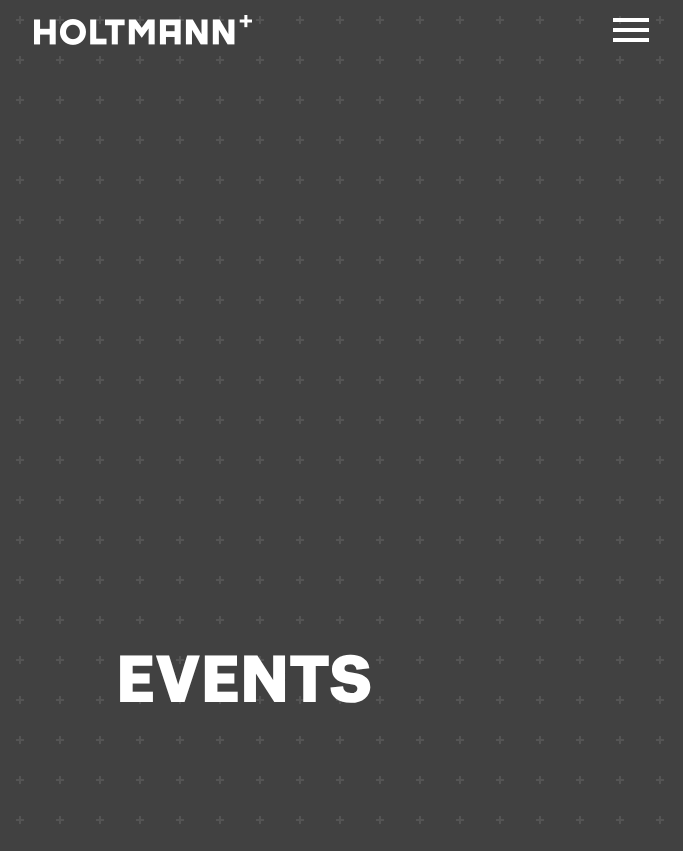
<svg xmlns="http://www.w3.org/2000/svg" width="683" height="851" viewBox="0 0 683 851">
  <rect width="100%" height="100%" fill="#414141"/>
  <image x="16" y="16" width="648" height="808" href="img/2.png"/>
  <image x="34" y="15" width="218" height="30" href="img/1.png"/>
  <path d="M649 18V22H613V18ZM613 28H649V32H613ZM613 38H649V42H613Z" fill="#fff"/>
  <text x="116" y="702" font-family="'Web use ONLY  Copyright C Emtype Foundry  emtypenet'" font-size="66.5" font-weight="800" fill="#fff">EVENTS</text>
</svg>
